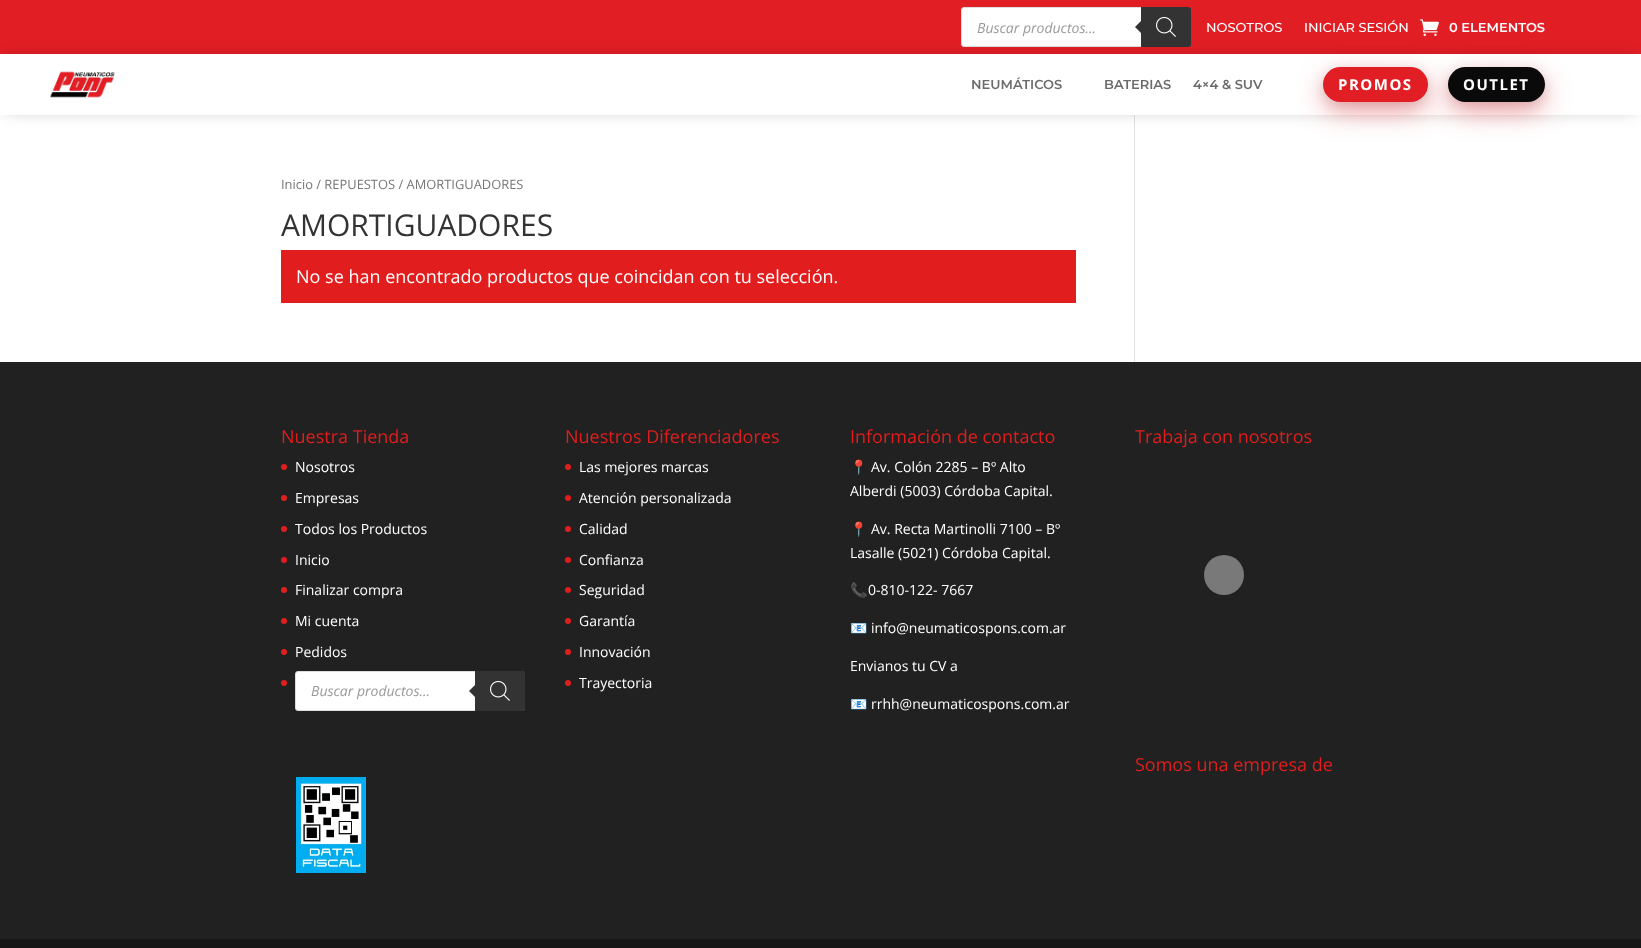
<svg xmlns="http://www.w3.org/2000/svg" width="1641" height="948" viewBox="0 0 1641 948">
  <rect width="100%" height="100%" fill="#fff"/>
  <path d="M0 0h1641v54H0z" fill="#e21e25"/>
  <rect x="961.5" y="7.5" width="229" height="39" rx="2.5" fill="#fff" stroke="#ddd"/>
  <path d="M1141 7H1189C1190 7 1191 8 1191 9V45C1191 46 1190 47 1189 47H1141Z" fill="#333"/>
  <path d="M1143 19V35L1135 27Z" fill="#333"/>
  <image x="1156" y="17" width="20" height="20" href="img/1.png"/>
  <image x="1420" y="19" width="19" height="17" href="img/2.png"/>
  <path d="M1134 115h1v247H1134z" fill="#e2e2e2"/>
  <path d="M6 60h1629v49H6z" fill="#0000004d" filter="blur(9px)"/>
  <path d="M0 54h1641v61H0z" fill="#fff"/>
  <image x="50" y="71" width="65" height="27" href="img/3.png"/>
  <rect x="1323" y="71" width="105" height="35" rx="17.5" fill="#00000021" filter="blur(6px)"/>
  <rect x="1323" y="77" width="105" height="35" rx="17.5" fill="#e21e2561" filter="blur(14px)"/>
  <rect x="1323" y="67" width="105" height="35" rx="17.5" fill="#e21e25"/>
  <rect x="1448" y="71" width="97" height="35" rx="17.5" fill="#00000021" filter="blur(6px)"/>
  <rect x="1448" y="77" width="97" height="35" rx="17.5" fill="#e21e2561" filter="blur(14px)"/>
  <rect x="1448" y="67" width="97" height="35" rx="17.5" fill="#0a0a0a"/>
  <path d="M281 250h795v53H281z" fill="#e21d1d"/>
  <path d="M0 362h1641v577H0z" fill="#212121"/>
  <circle cx="284" cy="467" r="3" fill="#e21d1d"/>
  <circle cx="284" cy="498" r="3" fill="#e21d1d"/>
  <circle cx="284" cy="529" r="3" fill="#e21d1d"/>
  <circle cx="284" cy="560" r="3" fill="#e21d1d"/>
  <circle cx="284" cy="590" r="3" fill="#e21d1d"/>
  <circle cx="284" cy="621" r="3" fill="#e21d1d"/>
  <circle cx="284" cy="652" r="3" fill="#e21d1d"/>
  <circle cx="284" cy="683" r="3" fill="#e21d1d"/>
  <rect x="295.5" y="671.5" width="229" height="39" rx="2.5" fill="#fff" stroke="#ddd"/>
  <path d="M475 671H523C524 671 525 672 525 673V709C525 710 524 711 523 711H475Z" fill="#333"/>
  <path d="M477 683V699L469 691Z" fill="#333"/>
  <image x="490" y="681" width="20" height="20" href="img/1.png"/>
  <image x="296" y="777" width="70" height="96" href="img/4.png"/>
  <circle cx="568" cy="467" r="3" fill="#e21d1d"/>
  <circle cx="568" cy="498" r="3" fill="#e21d1d"/>
  <circle cx="568" cy="529" r="3" fill="#e21d1d"/>
  <circle cx="568" cy="560" r="3" fill="#e21d1d"/>
  <circle cx="568" cy="590" r="3" fill="#e21d1d"/>
  <circle cx="568" cy="621" r="3" fill="#e21d1d"/>
  <circle cx="568" cy="652" r="3" fill="#e21d1d"/>
  <circle cx="568" cy="683" r="3" fill="#e21d1d"/>
  <circle cx="1224" cy="575" r="20" fill="#797979"/>
  <path d="M0 939h1641v9H0z" fill="#161616"/>
  <text x="977" y="33" font-family="Open Sans" font-size="14" font-style="italic" fill="#999">Buscar productos...</text>
  <g font-family="Montserrat" font-size="13" font-weight="500" fill="#fff">
    <text x="1206" y="32">NOSOTROS</text>
    <text x="1304" y="32">INICIAR SESIÓN</text>
  </g>
  <text x="1449" y="32" font-family="Montserrat" font-size="13" font-weight="600" fill="#fff">0 ELEMENTOS</text>
  <g font-family="Montserrat" font-size="13" font-weight="600" fill="#6b6b6b">
    <text x="971" y="89">NEUMÁTICOS</text>
    <text x="1104" y="89">BATERIAS</text>
    <text x="1193" y="89">4×4 &amp; SUV</text>
  </g>
  <g font-family="Open Sans" font-size="15" font-weight="bold" letter-spacing="1.5" fill="#fff">
    <text x="1338" y="90">PROMOS</text>
    <text x="1463" y="90">OUTLET</text>
  </g>
  <text x="281" y="189" font-family="Open Sans" font-size="12.9" fill="#767676">Inicio / REPUESTOS / AMORTIGUADORES</text>
  <text x="281" y="236" font-family="Open Sans" font-size="30" fill="#333">AMORTIGUADORES</text>
  <text x="296" y="283" font-family="Open Sans" font-size="18" fill="#fff">No se han encontrado productos que coincidan con tu selección.</text>
  <text x="281" y="443" font-family="Open Sans" font-size="18" fill="#e21d1d">Nuestra Tienda</text>
  <g font-family="Open Sans" font-size="14" fill="#fff">
    <text x="295" y="472">Nosotros</text>
    <text x="295" y="503">Empresas</text>
    <text x="295" y="534">Todos los Productos</text>
    <text x="295" y="565">Inicio</text>
    <text x="295" y="595">Finalizar compra</text>
    <text x="295" y="626">Mi cuenta</text>
    <text x="295" y="657">Pedidos</text>
  </g>
  <text x="311" y="696" font-family="Open Sans" font-size="14" font-style="italic" fill="#999">Buscar productos...</text>
  <text x="565" y="443" font-family="Open Sans" font-size="18" fill="#e21d1d">Nuestros Diferenciadores</text>
  <g font-family="Open Sans" font-size="14" fill="#fff">
    <text x="579" y="472">Las mejores marcas</text>
    <text x="579" y="503">Atención personalizada</text>
    <text x="579" y="534">Calidad</text>
    <text x="579" y="565">Confianza</text>
    <text x="579" y="595">Seguridad</text>
    <text x="579" y="626">Garantía</text>
    <text x="579" y="657">Innovación</text>
    <text x="579" y="688">Trayectoria</text>
  </g>
  <text x="850" y="443" font-family="Open Sans" font-size="18" fill="#e21d1d">Información de contacto</text>
  <text x="850" y="472" font-family="Noto Color Emoji" font-size="14" font-weight="bold" fill="#fff">📍</text>
  <g font-family="Open Sans" font-size="14" fill="#fff">
    <text x="871" y="472">Av. Colón 2285 – Bº Alto</text>
    <text x="850" y="496">Alberdi (5003) Córdoba Capital.</text>
  </g>
  <text x="850" y="534" font-family="Noto Color Emoji" font-size="14" font-weight="bold" fill="#fff">📍</text>
  <g font-family="Open Sans" font-size="14" fill="#fff">
    <text x="871" y="534">Av. Recta Martinolli 7100 – Bº</text>
    <text x="850" y="558">Lasalle (5021) Córdoba Capital.</text>
  </g>
  <text x="850" y="595" font-family="Noto Color Emoji" font-size="14" fill="#fff">📞</text>
  <text x="868" y="595" font-family="Open Sans" font-size="14" fill="#fff">0-810-122- 7667</text>
  <text x="850" y="633" font-family="Noto Color Emoji" font-size="14" fill="#fff">📧</text>
  <g font-family="Open Sans" font-size="14" fill="#fff">
    <text x="871" y="633">info@neumaticospons.com.ar</text>
    <text x="850" y="671">Envianos tu CV a</text>
  </g>
  <text x="850" y="709" font-family="Noto Color Emoji" font-size="14" fill="#fff">📧</text>
  <text x="871" y="709" font-family="Open Sans" font-size="14" fill="#fff">rrhh@neumaticospons.com.ar</text>
  <g font-family="Open Sans" font-size="18" fill="#e21d1d">
    <text x="1135" y="443">Trabaja con nosotros</text>
    <text x="1135" y="771">Somos una empresa de</text>
  </g>
</svg>
